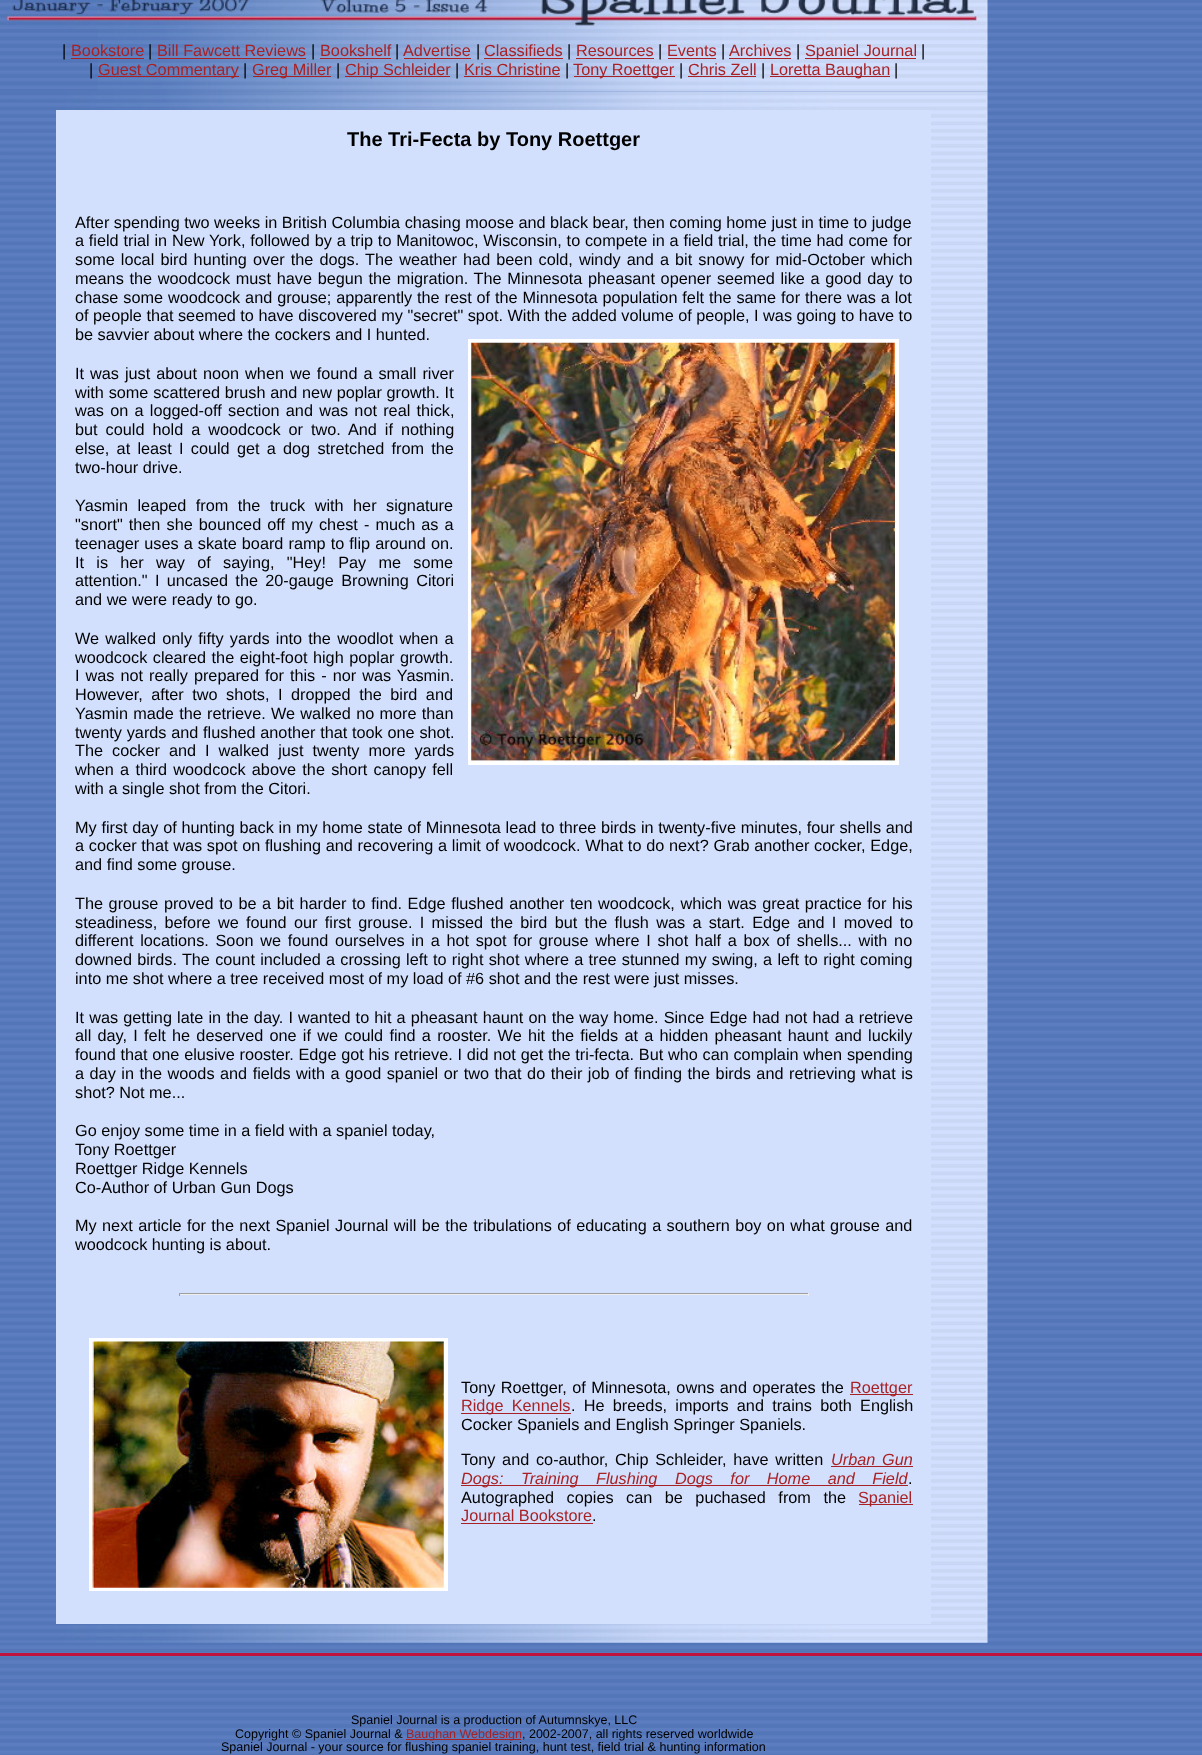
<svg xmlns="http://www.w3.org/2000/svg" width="1202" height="1755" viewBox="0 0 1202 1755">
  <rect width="100%" height="100%" fill="#fff"/>
  <image x="0" y="0" width="1202" height="1755" href="img/1.png"/>
  <image x="0" y="0" width="988" height="29" href="img/2.png"/>
  <image x="98" y="29" width="890" height="63" href="img/3.png"/>
  <path d="M71 58h73v1H71z" fill="#a82225"/>
  <path d="M158 58h148v1H158z" fill="#a82225"/>
  <path d="M320 58h71v1H320z" fill="#a82225"/>
  <path d="M404 58h67v1H404z" fill="#a82225"/>
  <path d="M484 58h79v1H484z" fill="#a82225"/>
  <path d="M576 58h78v1H576z" fill="#a82225"/>
  <path d="M668 58h48v1H668z" fill="#a82225"/>
  <path d="M729 58h62v1H729z" fill="#a82225"/>
  <path d="M805 58h111v1H805z" fill="#a82225"/>
  <path d="M98 76h141v1H98z" fill="#a82225"/>
  <path d="M253 76h78v1H253z" fill="#a82225"/>
  <path d="M345 76h105v1H345z" fill="#a82225"/>
  <path d="M464 76h96v1H464z" fill="#a82225"/>
  <path d="M574 76h101v1H574z" fill="#a82225"/>
  <path d="M688 76h68v1H688z" fill="#a82225"/>
  <path d="M770 76h120v1H770z" fill="#a82225"/>
  <image x="0" y="91" width="988" height="1552" href="img/4.png"/>
  <path d="M56 110h875v1514H56z" fill="#d2e0fd"/>
  <path d="M468 339h431v426H468z" fill="#fff"/>
  <image x="471" y="342" width="424" height="420" href="img/5.png"/>
  <path d="M179 1293h630v1H179z" fill="#9f9f9f"/>
  <path d="M808 1293h1v3H808z" fill="#eee"/>
  <path d="M179 1294h630v1H179z" fill="#eee"/>
  <path d="M179 1293h1v3H179z" fill="#9f9f9f"/>
  <path d="M89 1338h359v253H89z" fill="#fff"/>
  <image x="92" y="1341" width="352" height="247" href="img/6.png"/>
  <path d="M850 1394h63v1H850z" fill="#a82225"/>
  <path d="M461 1413h110v1H461z" fill="#a82225"/>
  <path d="M831 1466h82v1H831z" fill="#a82225"/>
  <path d="M461 1485h447v1H461z" fill="#a82225"/>
  <path d="M859 1504h54v1H859z" fill="#a82225"/>
  <path d="M461 1523h132v1H461z" fill="#a82225"/>
  <path d="M0 1653h1202v3H0z" fill="#c0123e"/>
  <path d="M406 1739h115v1H406z" fill="#a82225"/>
  <text x="62" y="56" font-family="Liberation Sans" font-size="16.25" fill="#000">|</text>
  <text x="71" y="56" font-family="Liberation Sans" font-size="16.25" fill="#a82225">Bookstore</text>
  <text x="148" y="56" font-family="Liberation Sans" font-size="16.25" fill="#000">|</text>
  <text x="157" y="56" font-family="Liberation Sans" font-size="16.25" fill="#a82225">Bill Fawcett Reviews</text>
  <text x="311" y="56" font-family="Liberation Sans" font-size="16.25" fill="#000">|</text>
  <text x="320" y="56" font-family="Liberation Sans" font-size="16.25" fill="#a82225">Bookshelf</text>
  <text x="395" y="56" font-family="Liberation Sans" font-size="16.25" fill="#000">|</text>
  <text x="403" y="56" font-family="Liberation Sans" font-size="16.25" fill="#a82225">Advertise</text>
  <text x="476" y="56" font-family="Liberation Sans" font-size="16.25" fill="#000">|</text>
  <text x="484" y="56" font-family="Liberation Sans" font-size="16.25" fill="#a82225">Classifieds</text>
  <text x="567" y="56" font-family="Liberation Sans" font-size="16.25" fill="#000">|</text>
  <text x="576" y="56" font-family="Liberation Sans" font-size="16.25" fill="#a82225">Resources</text>
  <text x="658" y="56" font-family="Liberation Sans" font-size="16.25" fill="#000">|</text>
  <text x="667" y="56" font-family="Liberation Sans" font-size="16.25" fill="#a82225">Events</text>
  <text x="721" y="56" font-family="Liberation Sans" font-size="16.25" fill="#000">|</text>
  <text x="729" y="56" font-family="Liberation Sans" font-size="16.25" fill="#a82225">Archives</text>
  <text x="796" y="56" font-family="Liberation Sans" font-size="16.25" fill="#000">|</text>
  <text x="805" y="56" font-family="Liberation Sans" font-size="16.25" fill="#a82225">Spaniel Journal</text>
  <g font-family="Liberation Sans" font-size="16.25" fill="#000">
    <text x="921" y="56">|</text>
    <text x="89" y="75">|</text>
  </g>
  <text x="98" y="75" font-family="Liberation Sans" font-size="16.25" fill="#a82225">Guest Commentary</text>
  <text x="243" y="75" font-family="Liberation Sans" font-size="16.25" fill="#000">|</text>
  <text x="252" y="75" font-family="Liberation Sans" font-size="16.25" fill="#a82225">Greg Miller</text>
  <text x="336" y="75" font-family="Liberation Sans" font-size="16.25" fill="#000">|</text>
  <text x="345" y="75" font-family="Liberation Sans" font-size="16.25" fill="#a82225">Chip Schleider</text>
  <text x="455" y="75" font-family="Liberation Sans" font-size="16.25" fill="#000">|</text>
  <text x="464" y="75" font-family="Liberation Sans" font-size="16.25" fill="#a82225">Kris Christine</text>
  <text x="565" y="75" font-family="Liberation Sans" font-size="16.25" fill="#000">|</text>
  <text x="573" y="75" font-family="Liberation Sans" font-size="16.25" fill="#a82225">Tony Roettger</text>
  <text x="679" y="75" font-family="Liberation Sans" font-size="16.25" fill="#000">|</text>
  <text x="688" y="75" font-family="Liberation Sans" font-size="16.25" fill="#a82225">Chris Zell</text>
  <text x="761" y="75" font-family="Liberation Sans" font-size="16.25" fill="#000">|</text>
  <text x="770" y="75" font-family="Liberation Sans" font-size="16.25" fill="#a82225">Loretta Baughan</text>
  <text x="894" y="75" font-family="Liberation Sans" font-size="16.25" fill="#000">|</text>
  <text x="347" y="146" font-family="Liberation Sans" font-size="20" font-weight="bold" fill="#000">The Tri-Fecta by Tony Roettger</text>
  <g font-family="Liberation Sans" font-size="16.25" fill="#000">
    <text x="75" y="228">After spending two weeks in British Columbia chasing moose and black bear, then coming home just in time to judge</text>
    <text x="75" y="246" word-spacing="0.3">a field trial in New York, followed by a trip to Manitowoc, Wisconsin, to compete in a field trial, the time had come for</text>
    <text x="75" y="265" word-spacing="1.6">some local bird hunting over the dogs. The weather had been cold, windy and a bit snowy for mid-October which</text>
    <text x="75" y="284" word-spacing="1.2">means the woodcock must have begun the migration. The Minnesota pheasant opener seemed like a good day to</text>
    <text x="75" y="303" word-spacing="0.4">chase some woodcock and grouse; apparently the rest of the Minnesota population felt the same for there was a lot</text>
    <text x="75" y="321">of people that seemed to have discovered my "secret" spot. With the added volume of people, I was going to have to</text>
    <text x="75" y="340">be savvier about where the cockers and I hunted.</text>
    <text x="75" y="379" word-spacing="1.5">It was just about noon when we found a small river</text>
    <text x="75" y="398" word-spacing="0.25">with some scattered brush and new poplar growth. It</text>
    <text x="75" y="416" word-spacing="1.75">was on a logged-off section and was not real thick,</text>
    <text x="75" y="435" word-spacing="3.5">but could hold a woodcock or two. And if nothing</text>
    <text x="75" y="454" word-spacing="2.75">else, at least I could get a dog stretched from the</text>
    <text x="75" y="473">two-hour drive.</text>
    <text x="75" y="511" word-spacing="5">Yasmin leaped from the truck with her signature</text>
    <text x="75" y="530" word-spacing="1.6">"snort" then she bounced off my chest - much as a</text>
    <text x="75" y="549" word-spacing="0.6">teenager uses a skate board ramp to flip around on.</text>
    <text x="75" y="568" word-spacing="7.75">It is her way of saying, "Hey! Pay me some</text>
    <text x="75" y="586" word-spacing="2.75">attention." I uncased the 20-gauge Browning Citori</text>
    <text x="75" y="605">and we were ready to go.</text>
    <text x="75" y="644" word-spacing="1.75">We walked only fifty yards into the woodlot when a</text>
    <text x="75" y="663" word-spacing="1">woodcock cleared the eight-foot high poplar growth.</text>
    <text x="75" y="681" word-spacing="1.5">I was not really prepared for this - nor was Yasmin.</text>
    <text x="75" y="700" word-spacing="4">However, after two shots, I dropped the bird and</text>
    <text x="75" y="719" word-spacing="0.75">Yasmin made the retrieve. We walked no more than</text>
    <text x="75" y="738" word-spacing="0.25">twenty yards and flushed another that took one shot.</text>
    <text x="75" y="756" word-spacing="4.5">The cocker and I walked just twenty more yards</text>
    <text x="75" y="775" word-spacing="1.75">when a third woodcock above the short canopy fell</text>
    <text x="75" y="794">with a single shot from the Citori.</text>
    <text x="75" y="833" word-spacing="0.2">My first day of hunting back in my home state of Minnesota lead to three birds in twenty-five minutes, four shells and</text>
    <text x="75" y="851" word-spacing="0.2">a cocker that was spot on flushing and recovering a limit of woodcock. What to do next? Grab another cocker, Edge,</text>
    <text x="75" y="870">and find some grouse.</text>
    <text x="75" y="909" word-spacing="1.1">The grouse proved to be a bit harder to find. Edge flushed another ten woodcock, which was great practice for his</text>
    <text x="75" y="928" word-spacing="2.8">steadiness, before we found our first grouse. I missed the bird but the flush was a start. Edge and I moved to</text>
    <text x="75" y="946" word-spacing="2.2">different locations. Soon we found ourselves in a hot spot for grouse where I shot half a box of shells... with no</text>
    <text x="75" y="965" word-spacing="0.75">downed birds. The count included a crossing left to right shot where a tree stunned my swing, a left to right coming</text>
    <text x="75" y="984">into me shot where a tree received most of my load of #6 shot and the rest were just misses.</text>
    <text x="75" y="1023" word-spacing="0.6">It was getting late in the day. I wanted to hit a pheasant haunt on the way home. Since Edge had not had a retrieve</text>
    <text x="75" y="1041" word-spacing="1.75">all day, I felt he deserved one if we could find a rooster. We hit the fields at a hidden pheasant haunt and luckily</text>
    <text x="75" y="1060" word-spacing="0.25">found that one elusive rooster. Edge got his retrieve. I did not get the tri-fecta. But who can complain when spending</text>
    <text x="75" y="1079" word-spacing="1">a day in the woods and fields with a good spaniel or two that do their job of finding the birds and retrieving what is</text>
    <text x="75" y="1098">shot? Not me...</text>
    <text x="75" y="1136">Go enjoy some time in a field with a spaniel today,</text>
    <text x="75" y="1155">Tony Roettger</text>
    <text x="75" y="1174">Roettger Ridge Kennels</text>
    <text x="75" y="1193">Co-Author of Urban Gun Dogs</text>
    <text x="75" y="1231" word-spacing="0.9">My next article for the next Spaniel Journal will be the tribulations of educating a southern boy on what grouse and</text>
    <text x="75" y="1250">woodcock hunting is about.</text>
    <text x="461" y="1393" word-spacing="1">Tony Roettger, of Minnesota, owns and operates the</text>
  </g>
  <g font-family="Liberation Sans" font-size="16.25" fill="#a82225">
    <text x="850" y="1393">Roettger</text>
    <text x="461" y="1411" word-spacing="3.75">Ridge Kennels</text>
  </g>
  <g font-family="Liberation Sans" font-size="16.25" fill="#000">
    <text x="571" y="1411" word-spacing="3.75">. He breeds, imports and trains both English</text>
    <text x="461" y="1430">Cocker Spaniels and English Springer Spaniels.</text>
    <text x="461" y="1465" word-spacing="2.25">Tony and co-author, Chip Schleider, have written</text>
  </g>
  <g font-family="Liberation Sans" font-size="16.25" font-style="italic" fill="#a82225">
    <text x="831" y="1465" word-spacing="2.25">Urban Gun</text>
    <text x="461" y="1484" word-spacing="13">Dogs: Training Flushing Dogs for Home and Field</text>
  </g>
  <g font-family="Liberation Sans" font-size="16.25" fill="#000">
    <text x="908" y="1484">.</text>
    <text x="461" y="1503" word-spacing="8">Autographed copies can be puchased from the</text>
  </g>
  <g font-family="Liberation Sans" font-size="16.25" fill="#a82225">
    <text x="858" y="1503">Spaniel</text>
    <text x="461" y="1521">Journal Bookstore</text>
  </g>
  <text x="592" y="1521" font-family="Liberation Sans" font-size="16.25" fill="#000">.</text>
  <g font-family="Liberation Sans" font-size="12.5" fill="#000">
    <text x="351" y="1724">Spaniel Journal is a production of Autumnskye, LLC</text>
    <text x="235" y="1738">Copyright © Spaniel Journal &amp;</text>
  </g>
  <text x="406" y="1738" font-family="Liberation Sans" font-size="12.5" fill="#a82225">Baughan Webdesign</text>
  <g font-family="Liberation Sans" font-size="12.5" fill="#000">
    <text x="522" y="1738">, 2002-2007, all rights reserved worldwide</text>
    <text x="221" y="1751">Spaniel Journal - your source for flushing spaniel training, hunt test, field trial &amp; hunting information</text>
  </g>
</svg>
